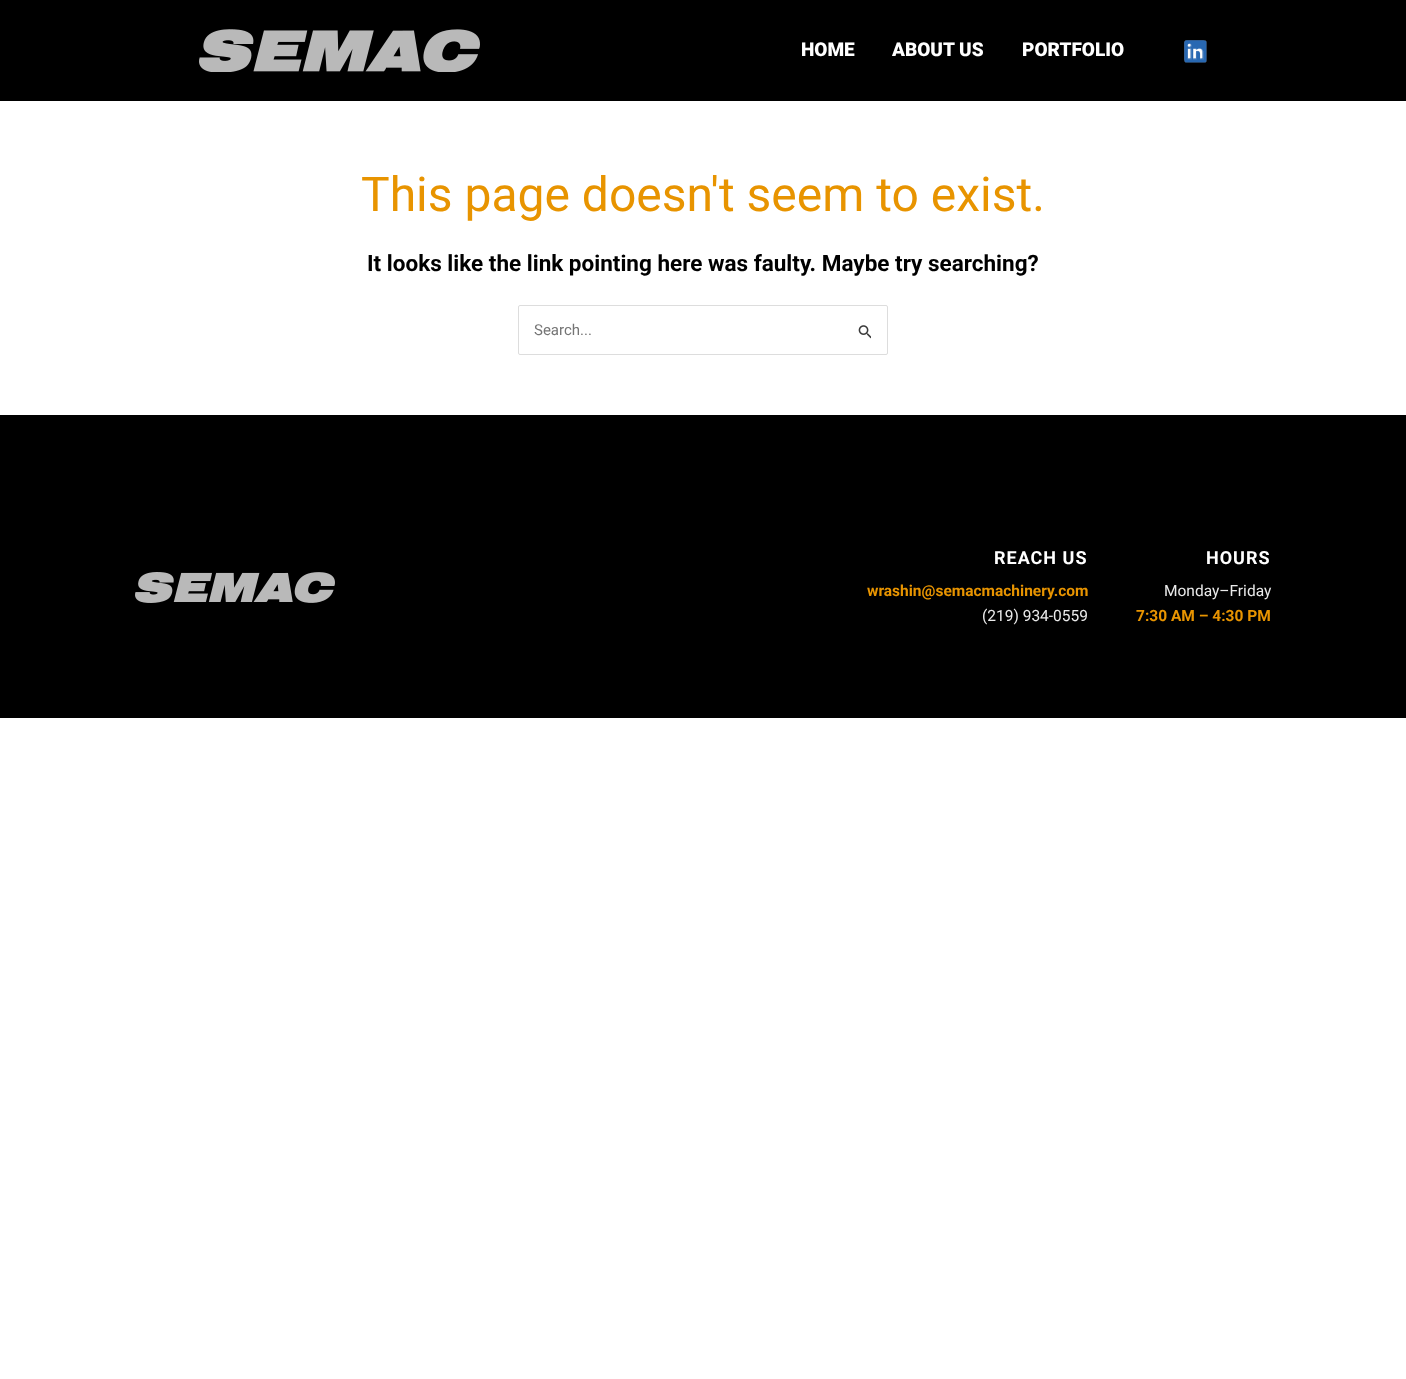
<svg xmlns="http://www.w3.org/2000/svg" width="1406" height="1379" viewBox="0 0 1406 1379">
  <rect width="100%" height="100%" fill="#fff"/>
  <path d="M0 0h1406v101H0z" fill="#000"/>
  <image x="199" y="29" width="281" height="43" href="img/1.png"/>
  <image x="1184" y="40" width="23" height="23" href="img/2.png"/>
  <image x="1184" y="40" width="23" height="23" href="img/3.png"/>
  <rect x="518.5" y="305.5" width="369" height="49" rx="1.5" fill="none" stroke="#ddd"/>
  <image x="858" y="325" width="13" height="14" href="img/4.png"/>
  <path d="M0 415h1406v303H0z" fill="#000"/>
  <image x="135" y="572" width="200" height="31" href="img/5.png"/>
  <g font-family="Roboto" font-size="19" font-weight="900" fill="#fff">
    <text x="801" y="56">HOME</text>
    <text x="892" y="56">ABOUT US</text>
    <text x="1022" y="56">PORTFOLIO</text>
  </g>
  <text x="361" y="211" font-family="Roboto" font-size="48" fill="#e89400">This page doesn't seem to exist.</text>
  <text x="367" y="271" font-family="Roboto" font-size="22.5" font-weight="bold" fill="#000">It looks like the link pointing here was faulty. Maybe try searching?</text>
  <text x="534" y="335" font-family="Roboto" font-size="15" fill="#757575">Search...</text>
  <text x="994" y="564" font-family="Roboto" font-size="18" font-weight="bold" letter-spacing="1" fill="#fff">REACH US</text>
  <text x="867" y="596" font-family="Roboto" font-size="15.5" font-weight="bold" fill="#e89400">wrashin@semacmachinery.com</text>
  <text x="982" y="621" font-family="Roboto" font-size="15.5" fill="#eaeaea">(219) 934-0559</text>
  <text x="1206" y="564" font-family="Roboto" font-size="18" font-weight="bold" letter-spacing="1" fill="#fff">HOURS</text>
  <text x="1164" y="596" font-family="Roboto" font-size="15.5" fill="#eaeaea">Monday–Friday</text>
  <text x="1136" y="621" font-family="Roboto" font-size="15.5" font-weight="bold" fill="#e89400">7:30 AM – 4:30 PM</text>
</svg>
